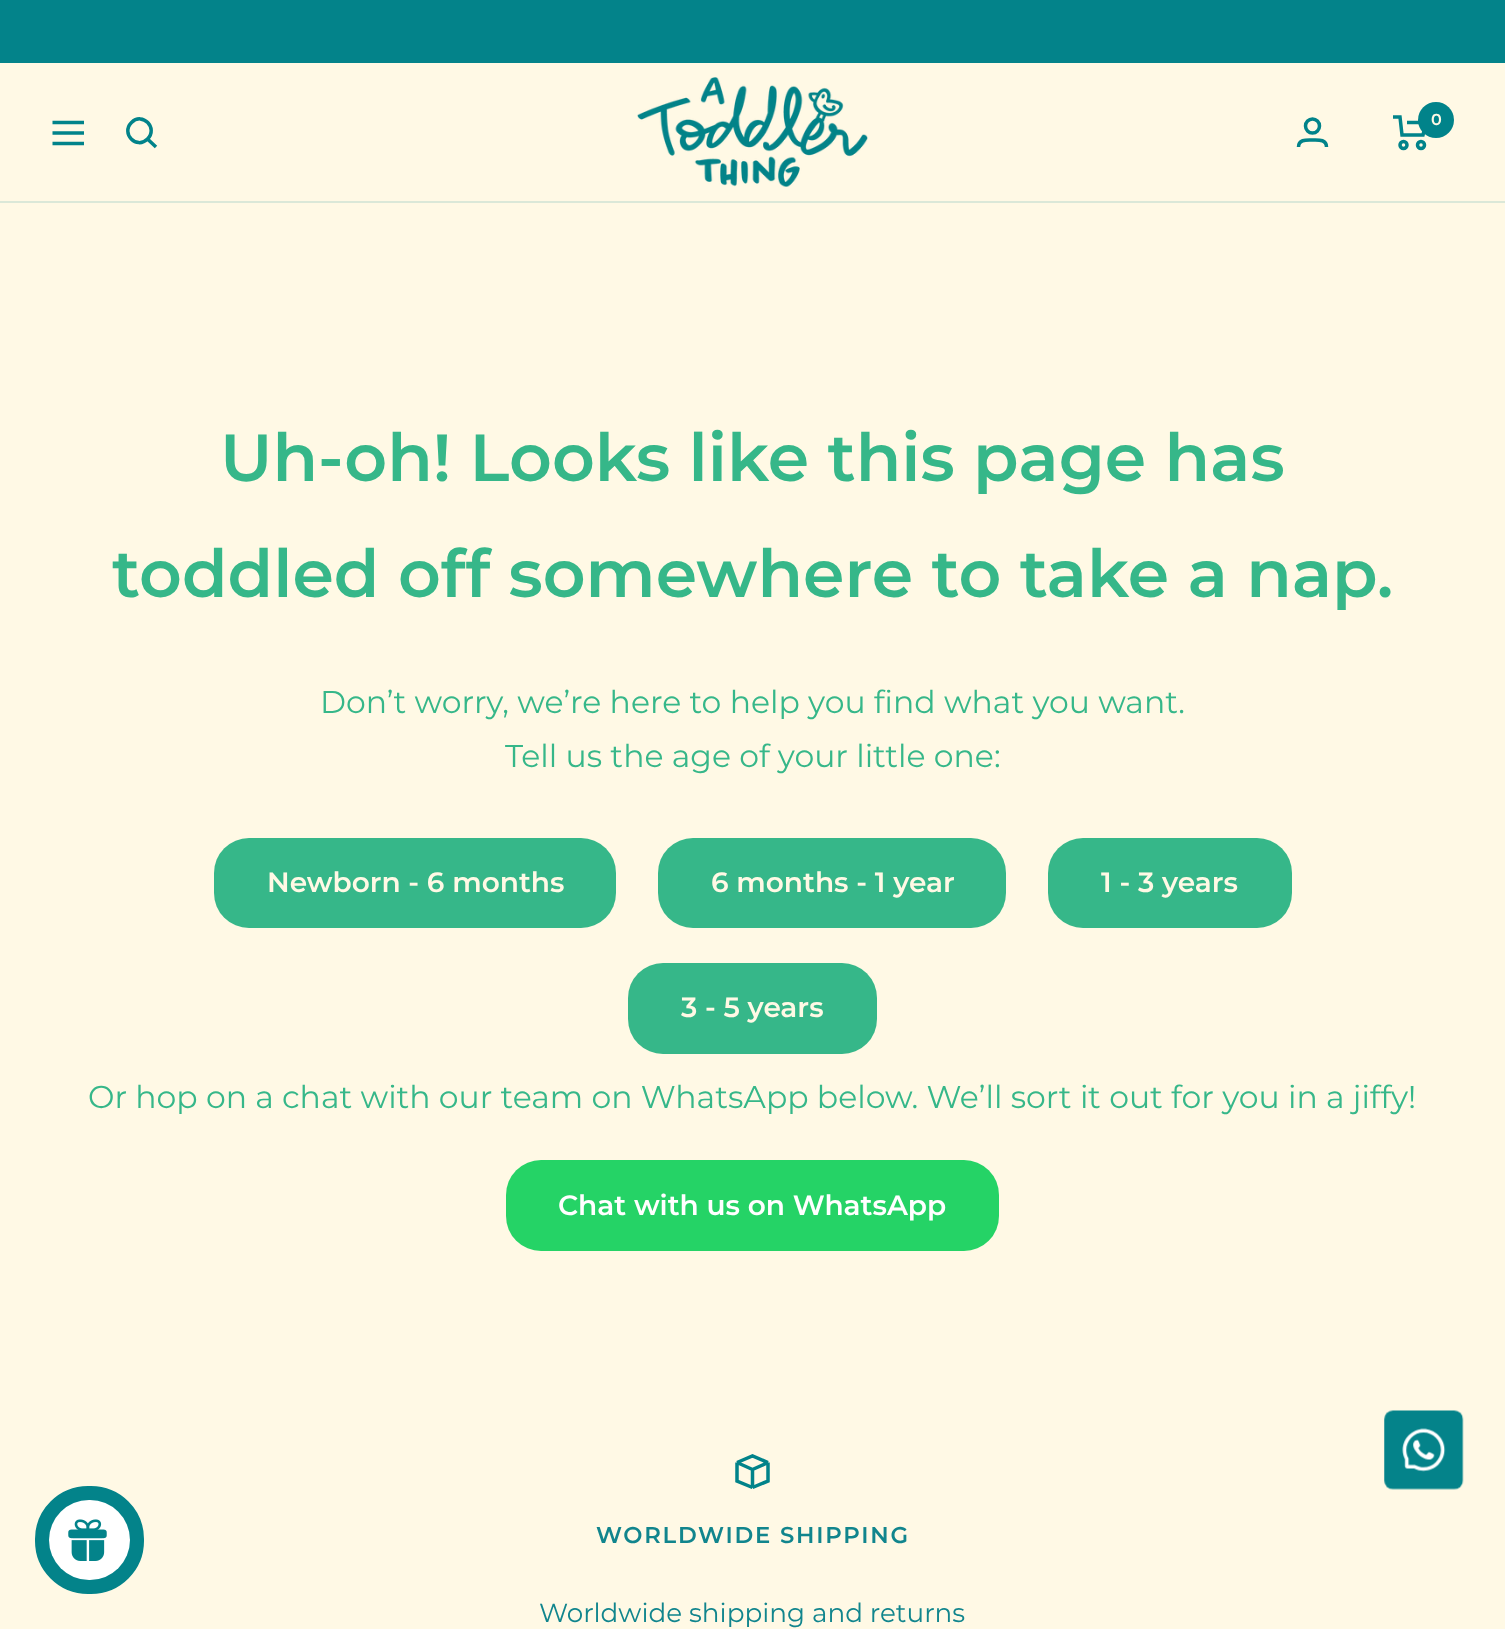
<svg xmlns="http://www.w3.org/2000/svg" width="1505" height="1629" viewBox="0 0 1505 1629">
  <rect width="100%" height="100%" fill="#fff9e5"/>
  <path d="M0 0h1505v63H0z" fill="#03838a"/>
  <path d="M0 201h1505v2H0z" fill="#dbe8d8"/>
  <path d="M52.5 122.5H84M52.5 143.5H84ZM52.5 133H84Z" fill="none" stroke="#01838a" stroke-width="3.5"/>
  <path d="M147.5 139C158.5 128 142.5 111.5 131.5 122.5C120.5 133.5 136.5 150 147.5 139ZM147.5 139L156 147" fill="none" stroke="#01838a" stroke-width="3.5"/>
  <image x="637" y="77" width="231" height="110" href="img/1.png"/>
  <circle cx="1312.5" cy="126" r="7" fill="none" stroke="#01838a" stroke-width="3.5"/>
  <path d="M1298.5 147C1298.5 139 1307 140 1312.5 140C1318 140 1326.5 139 1326.5 147" fill="none" stroke="#01838a" stroke-width="3.5"/>
  <path d="M1393 117H1400L1402 135H1423L1426 122.5H1407" fill="none" stroke="#01838a" stroke-width="3.5"/>
  <circle cx="1403.5" cy="145" r="3.5" fill="none" stroke="#01838a" stroke-width="3.5"/>
  <circle cx="1421" cy="145" r="3.5" fill="none" stroke="#01838a" stroke-width="3.5"/>
  <circle cx="1436" cy="120" r="18" fill="#01838a"/>
  <rect x="214" y="838" width="402" height="90" rx="35" fill="#36b789"/>
  <rect x="658" y="838" width="348" height="90" rx="35" fill="#36b789"/>
  <rect x="1048" y="838" width="244" height="90" rx="35" fill="#36b789"/>
  <rect x="628" y="963" width="249" height="91" rx="35" fill="#36b789"/>
  <rect x="506" y="1160" width="493" height="91" rx="35" fill="#25d366"/>
  <image x="1384" y="1410" width="80" height="80" href="img/2.png"/>
  <rect x="36" y="1487" width="107" height="106" rx="52" fill="#03838a" stroke="#03838a" stroke-width="2"/>
  <rect x="49" y="1500" width="81" height="80" rx="40" fill="#fff"/>
  <image x="68" y="1519" width="39" height="42" href="img/3.png"/>
  <path d="M752.5 1487.5L768 1481V1462.5M752.5 1487.5L737 1481V1462.5M752.5 1487.5V1469.5M768 1462.5L752.5 1456L737 1462.5M768 1462.5L752.5 1469.5M737 1462.5L752.5 1469.5" fill="none" stroke="#01838a" stroke-width="3.5"/>
  <text x="1431" y="125" font-family="Montserrat" font-size="16" font-weight="600" fill="#fff9e5">0</text>
  <g font-family="Montserrat" font-size="66.5" font-weight="600" fill="#36b789">
    <text x="220" y="481">Uh-oh! Looks like this page has</text>
    <text x="112" y="597">toddled off somewhere to take a nap.</text>
  </g>
  <g font-family="Montserrat" font-size="31.5" fill="#36b789">
    <text x="320" y="713">Don’t worry, we’re here to help you find what you want.</text>
    <text x="505" y="767">Tell us the age of your little one:</text>
  </g>
  <g font-family="Montserrat" font-size="28" font-weight="600" fill="#fff9e5">
    <text x="267" y="892">Newborn - 6 months</text>
    <text x="711" y="892">6 months - 1 year</text>
    <text x="1101" y="892">1 - 3 years</text>
    <text x="681" y="1017">3 - 5 years</text>
  </g>
  <text x="88" y="1108" font-family="Montserrat" font-size="31.5" fill="#36b789">Or hop on a chat with our team on WhatsApp below. We’ll sort it out for you in a jiffy!</text>
  <text x="558" y="1215" font-family="Montserrat" font-size="28" font-weight="600" fill="#fff">Chat with us on WhatsApp</text>
  <text x="596" y="1543" font-family="Montserrat" font-size="22.75" font-weight="600" letter-spacing="1.75" fill="#11858d">WORLDWIDE SHIPPING</text>
  <text x="539" y="1622" font-family="Montserrat" font-size="26.25" fill="#11858d">Worldwide shipping and returns</text>
</svg>
